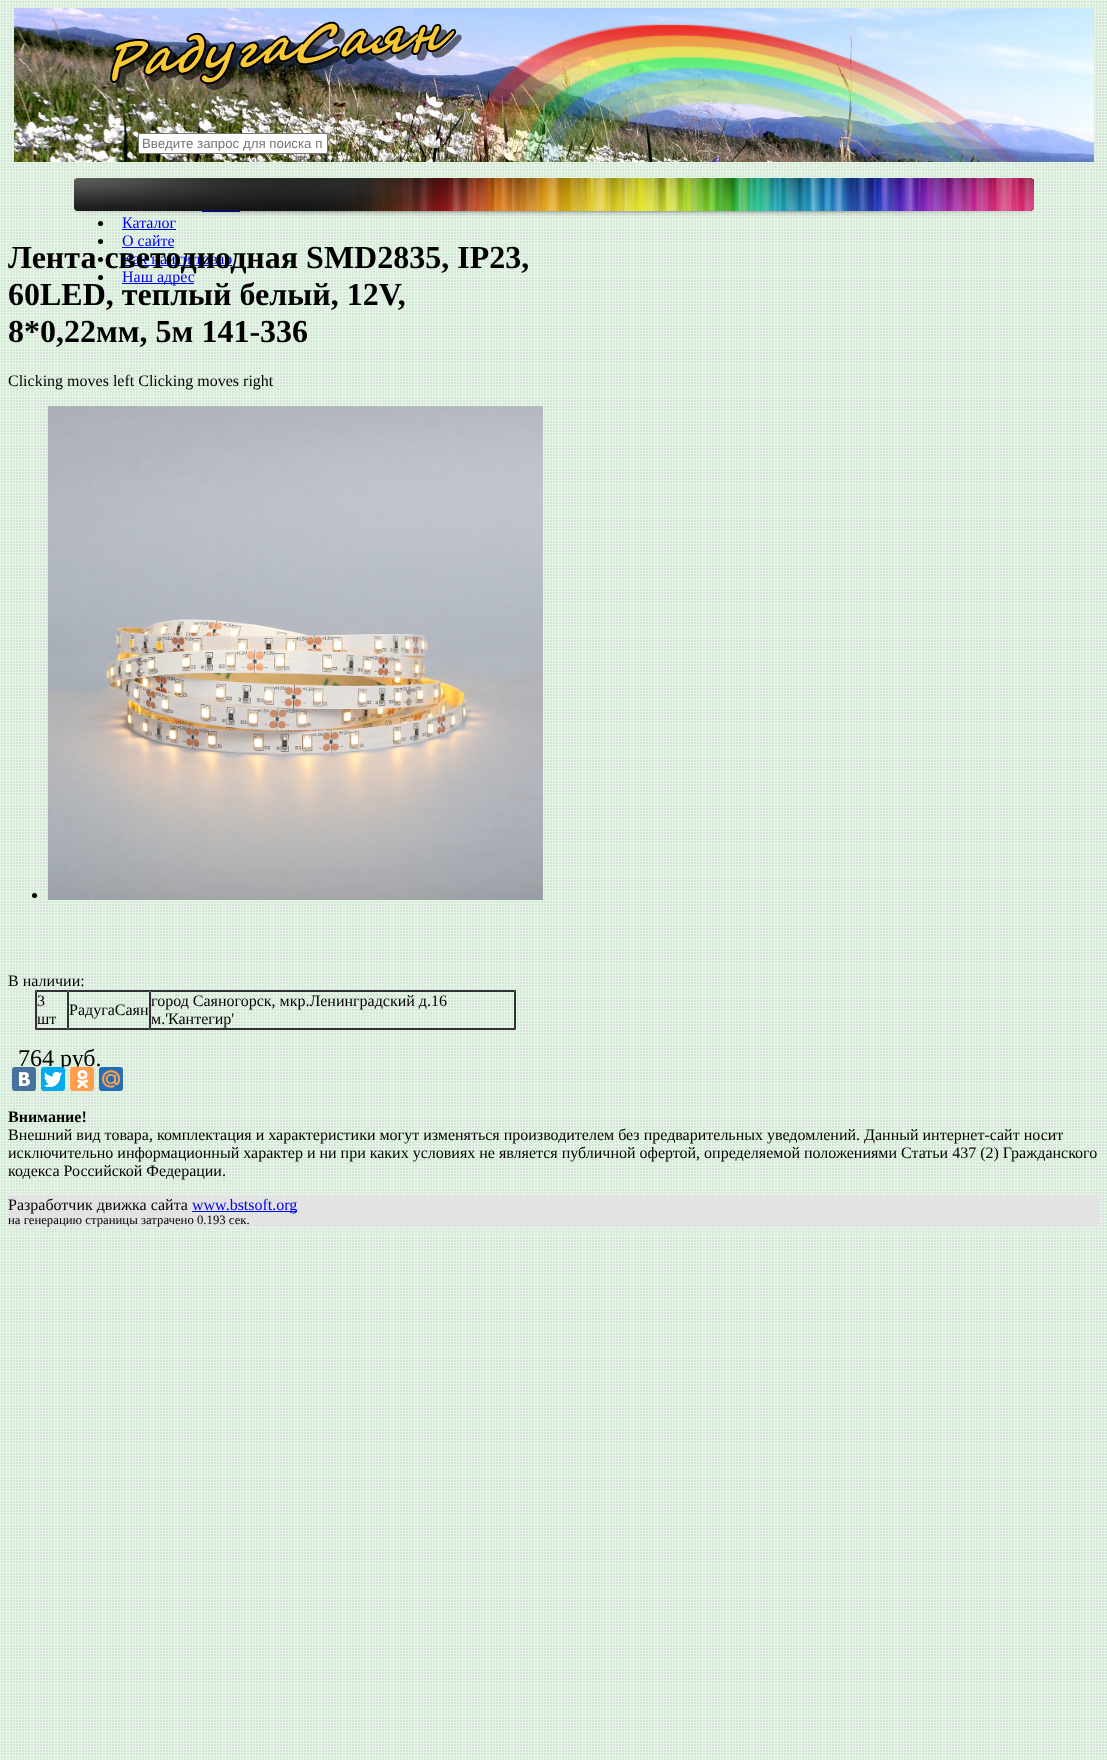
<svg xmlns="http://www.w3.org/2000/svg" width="1107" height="1760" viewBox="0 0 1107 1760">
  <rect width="100%" height="100%" fill="#ddfbe0"/>
  <image x="1" y="1" width="1106" height="1759" href="img/1.png"/>
  <image x="14" y="8" width="1080" height="154" href="img/2.png"/>
  <rect x="138.5" y="133.5" width="189" height="20" rx="1.5" fill="#fff" stroke="#767676"/>
  <path d="M202 211h38v1H202z" fill="#00e"/>
  <image x="74" y="178" width="960" height="38" href="img/3.png"/>
  <circle cx="100.5" cy="223.5" r="2.5" fill="#000"/>
  <path d="M122 229h54v1H122z" fill="#00e"/>
  <circle cx="100.5" cy="241.5" r="2.5" fill="#000"/>
  <path d="M122 247h52v1H122z" fill="#00e"/>
  <circle cx="100.5" cy="259.5" r="2.5" fill="#000"/>
  <path d="M122 265h110v1H122z" fill="#00e"/>
  <circle cx="100.5" cy="277.5" r="2.5" fill="#000"/>
  <path d="M122 283h72v1H122z" fill="#00e"/>
  <circle cx="34.5" cy="895.5" r="2.5" fill="#000"/>
  <image x="48" y="406" width="495" height="494" href="img/4.png"/>
  <path d="M35.5 990.5h480v39H35.5z" fill="none" stroke="#313233"/>
  <path d="M36.5 991.5h31v37H36.5z" fill="none" stroke="#313233"/>
  <path d="M68.5 991.5h81v37H68.5z" fill="none" stroke="#313233"/>
  <path d="M150.5 991.5h364v37H150.5z" fill="none" stroke="#313233"/>
  <path d="M8 1196h1091v31H8z" fill="#e3e3e3"/>
  <path d="M192 1211h105v1H192z" fill="#00e"/>
  <text x="142" y="148" font-family="Liberation Sans" font-size="13.3" fill="#757575">Введите запрос для поиска п</text>
  <g font-family="Liberation Serif" font-size="16" fill="#00e">
    <text x="122" y="228">Каталог</text>
    <text x="122" y="246">О сайте</text>
    <text x="122" y="264">Как найти товар</text>
    <text x="122" y="282">Наш адрес</text>
  </g>
  <g font-family="Liberation Serif" font-size="32" font-weight="bold" fill="#000">
    <text x="8" y="268">Лента светодиодная SMD2835, IP23,</text>
    <text x="8" y="305">60LED, теплый белый, 12V,</text>
    <text x="8" y="342">8*0,22мм, 5м 141-336</text>
  </g>
  <text x="8" y="386" font-family="Liberation Serif" font-size="16" fill="#000">Clicking moves left Clicking moves right</text>
  <text x="18" y="1066" font-family="Liberation Serif" font-size="24" fill="#000">764 руб.</text>
  <g font-family="Liberation Serif" font-size="16" fill="#000">
    <text x="8" y="986">В наличии:</text>
    <text x="37" y="1006">3</text>
    <text x="37" y="1024">шт</text>
    <text x="69" y="1015">РадугаСаян</text>
    <text x="151" y="1006">город Саяногорск, мкр.Ленинградский д.16</text>
    <text x="151" y="1024">м.'Кантегир'</text>
  </g>
  <rect x="12" y="1067" width="24" height="24" rx="3" fill="#48729e"/>
  <image x="19" y="1072" width="11" height="14" href="img/5.png"/>
  <rect x="41" y="1067" width="24" height="24" rx="3" fill="#00aced"/>
  <image x="44" y="1072" width="18" height="15" href="img/6.png"/>
  <rect x="70" y="1067" width="24" height="24" rx="3" fill="#ff9f4d"/>
  <image x="77" y="1070" width="11" height="18" href="img/7.png"/>
  <rect x="99" y="1067" width="24" height="24" rx="3" fill="#226eb7"/>
  <image x="102" y="1070" width="18" height="18" href="img/8.png"/>
  <text x="8" y="1122" font-family="Liberation Serif" font-size="16" font-weight="bold" fill="#000">Внимание!</text>
  <g font-family="Liberation Serif" font-size="16" fill="#000">
    <text x="8" y="1140">Внешний вид товара, комплектация и характеристики могут изменяться производителем без предварительных уведомлений. Данный интернет-сайт носит</text>
    <text x="8" y="1158">исключительно информационный характер и ни при каких условиях не является публичной офертой, определяемой положениями Статьи 437 (2) Гражданского</text>
    <text x="8" y="1176">кодекса Российской Федерации.</text>
    <text x="8" y="1210">Разработчик движка сайта</text>
  </g>
  <text x="192" y="1210" font-family="Liberation Serif" font-size="16" fill="#00e">www.bstsoft.org</text>
  <text x="8" y="1224" font-family="Liberation Serif" font-size="12.75" fill="#000">на генерацию страницы затрачено 0.193 сек.</text>
</svg>
